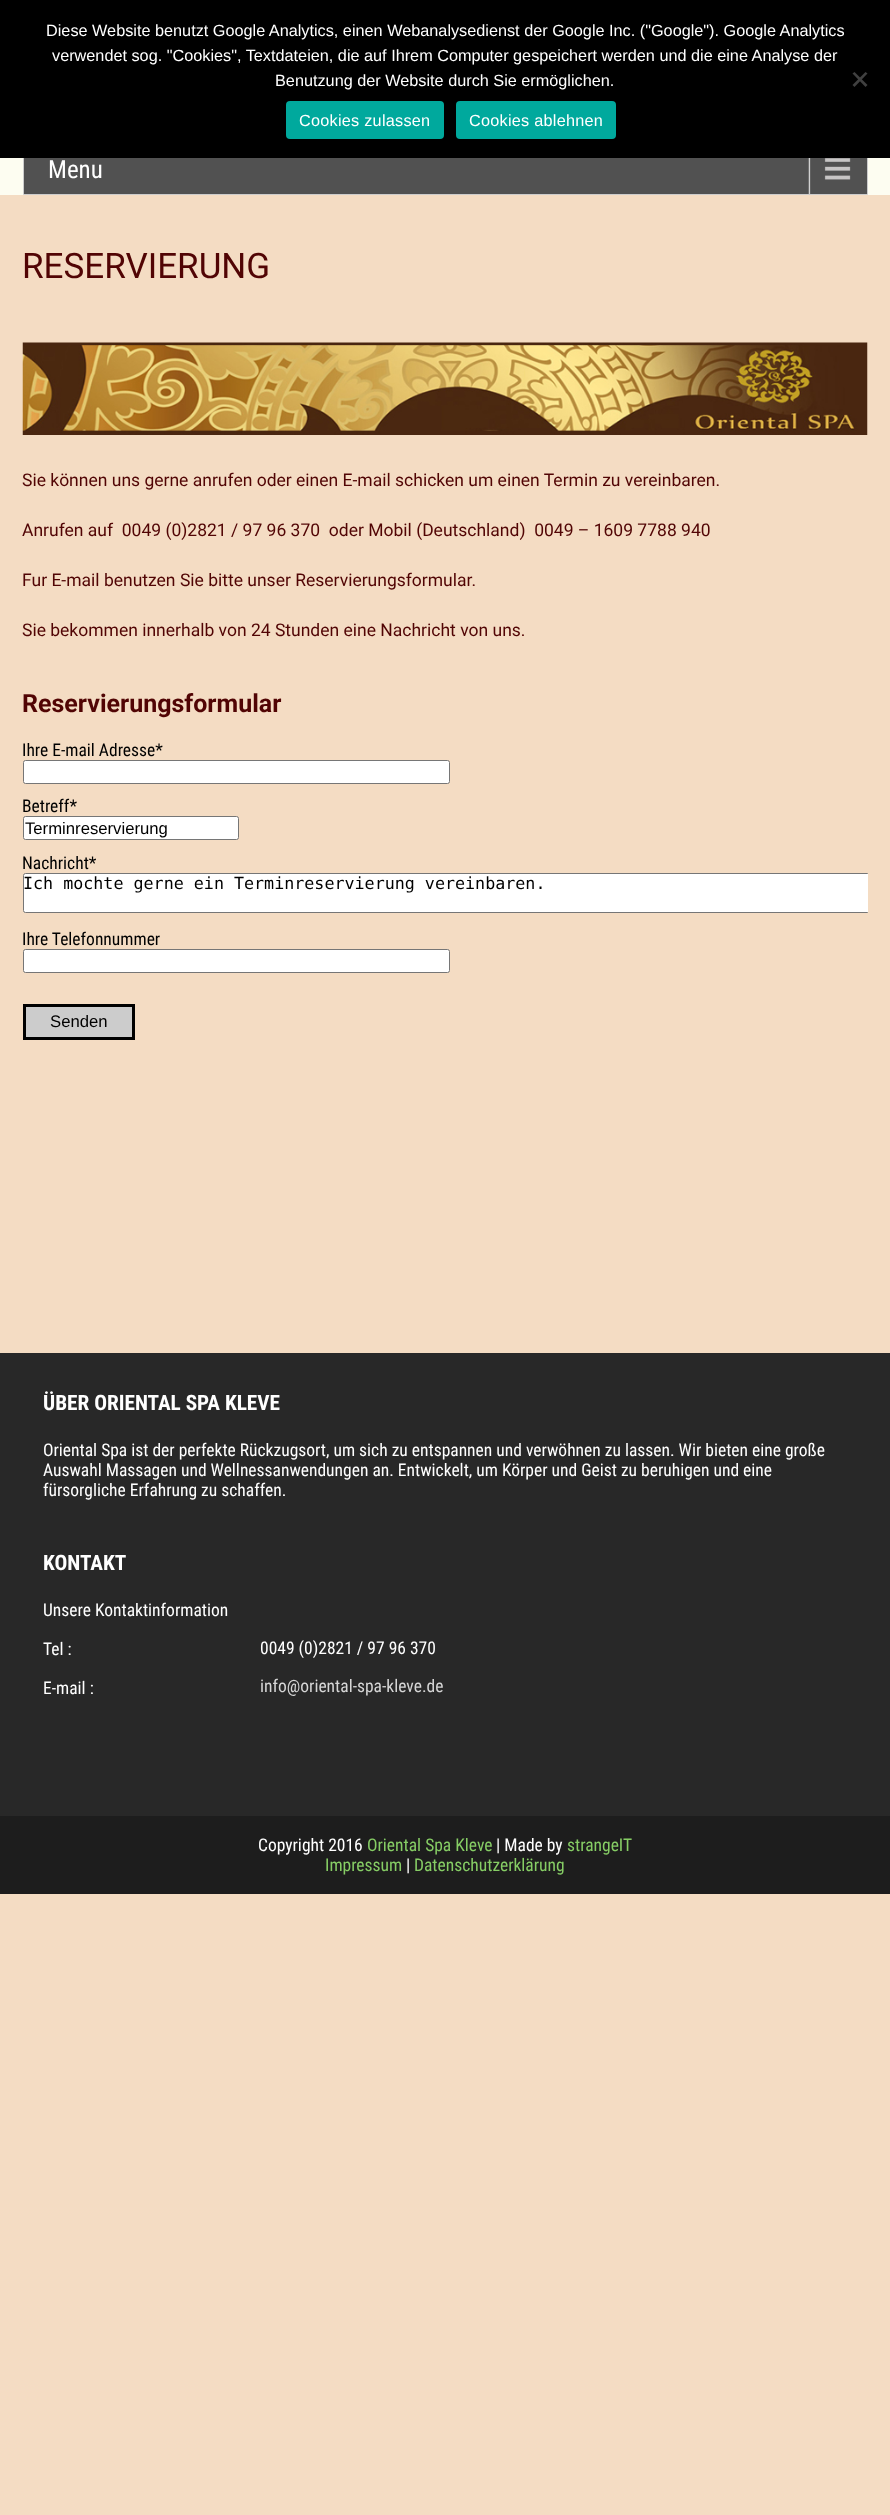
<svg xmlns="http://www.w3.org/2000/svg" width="890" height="2515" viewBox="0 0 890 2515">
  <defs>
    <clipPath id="clip1"><path d="M23 324h845v835H23z"/></clipPath>
  </defs>
  <rect width="100%" height="100%" fill="#f4dcc3"/>
  <path d="M0 158h890v37H0z" fill="#fdfdf1"/>
  <path d="M24 158h843v36H24z" fill="#515151"/>
  <image x="808" y="158" width="43" height="36" href="img/1.png"/>
  <path d="M23.5 143.5h844v51H23.5z" fill="none" stroke="#ccc"/>
  <path d="M0 0h890v158H0z" fill="#000"/>
  <path d="M865.5 72L867.5 73.5L854.5 87L852.5 85Z" fill="#404040"/>
  <path d="M852.5 73.5L854.5 72L867.5 85L865.5 87Z" fill="#404040"/>
  <rect x="286" y="101" width="158" height="38" rx="4" fill="#00a99d"/>
  <rect x="456" y="101" width="160" height="38" rx="4" fill="#00a99d"/>
  <image x="22" y="342" width="846" height="93" href="img/2.png"/>
  <rect x="23.5" y="760.5" width="426" height="23" rx="2" fill="#fff" stroke="#767676"/>
  <rect x="23.5" y="816.5" width="215" height="23" rx="2" fill="#fff" stroke="#767676"/>
  <g clip-path="url(#clip1)">
    <rect x="23.5" y="873.5" width="846" height="39" rx="2" fill="#fff" stroke="#767676"/>
  </g>
  <rect x="23.5" y="949.5" width="426" height="23" rx="2" fill="#fff" stroke="#767676"/>
  <path d="M24.5 1005.5h109v33H24.5z" fill="#ccc" stroke="#000" stroke-width="3"/>
  <path d="M0 1353h890v463H0z" fill="#282828"/>
  <path d="M0 1816h890v78H0z" fill="#1d1d1d"/>
  <g font-family="Liberation Sans" font-size="16.25" fill="#fff">
    <text x="46" y="36">Diese Website benutzt Google Analytics, einen Webanalysedienst der Google Inc. ("Google"). Google Analytics</text>
    <text x="52" y="61">verwendet sog. "Cookies", Textdateien, die auf Ihrem Computer gespeichert werden und die eine Analyse der</text>
    <text x="275" y="86">Benutzung der Website durch Sie ermöglichen.</text>
  </g>
  <g font-family="Liberation Sans" font-size="16.25" letter-spacing="0.25" fill="#fff">
    <text x="299" y="126">Cookies zulassen</text>
    <text x="469" y="126">Cookies ablehnen</text>
  </g>
  <text x="48" y="178" font-family="Roboto Condensed" font-size="25" fill="#fff">Menu</text>
  <text x="22" y="278" font-family="Roboto" font-size="35" fill="#510404">RESERVIERUNG</text>
  <g font-family="Roboto" font-size="17.5" fill="#510404">
    <text x="22" y="486">Sie können uns gerne anrufen oder einen E-mail schicken um einen Termin zu vereinbaren.</text>
    <text x="22" y="536" xml:space="preserve">Anrufen auf  0049 (0)2821 / 97 96 370  oder Mobil (Deutschland)  0049 – 1609 7788 940</text>
    <text x="22" y="586">Fur E-mail benutzen Sie bitte unser Reservierungsformular.</text>
    <text x="22" y="636">Sie bekommen innerhalb von 24 Stunden eine Nachricht von uns.</text>
  </g>
  <text x="22" y="712" font-family="Roboto" font-size="25" font-weight="bold" fill="#510404">Reservierungsformular</text>
  <g font-family="Roboto Condensed" font-size="17.5" fill="#000">
    <text x="22" y="756">Ihre E-mail Adresse*</text>
    <text x="22" y="812">Betreff*</text>
  </g>
  <text x="25" y="834" font-family="Liberation Sans" font-size="16.7" fill="#000">Terminreservierung</text>
  <text x="22" y="869" font-family="Roboto Condensed" font-size="17.5" fill="#000">Nachricht*</text>
  <text x="23" y="889" font-family="DejaVu Sans Mono" font-size="16.7" fill="#000">Ich mochte gerne ein Terminreservierung vereinbaren.</text>
  <text x="22" y="945" font-family="Roboto Condensed" font-size="17.5" fill="#000">Ihre Telefonnummer</text>
  <text x="50" y="1027" font-family="Liberation Sans" font-size="16.7" fill="#000">Senden</text>
  <text x="43" y="1410" font-family="Roboto Condensed" font-size="21.25" font-weight="bold" fill="#fff">ÜBER ORIENTAL SPA KLEVE</text>
  <g font-family="Roboto Condensed" font-size="17.5" fill="#fff">
    <text x="43" y="1456">Oriental Spa ist der perfekte Rückzugsort, um sich zu entspannen und verwöhnen zu lassen. Wir bieten eine große</text>
    <text x="43" y="1476">Auswahl Massagen und Wellnessanwendungen an. Entwickelt, um Körper und Geist zu beruhigen und eine</text>
    <text x="43" y="1496">fürsorgliche Erfahrung zu schaffen.</text>
  </g>
  <text x="43" y="1570" font-family="Roboto Condensed" font-size="21.25" font-weight="bold" fill="#fff">KONTAKT</text>
  <g font-family="Roboto Condensed" font-size="17.5" fill="#fff">
    <text x="43" y="1616">Unsere Kontaktinformation</text>
    <text x="43" y="1655">Tel :</text>
    <text x="260" y="1654">0049 (0)2821 / 97 96 370</text>
    <text x="43" y="1694">E-mail :</text>
  </g>
  <text x="260" y="1692" font-family="Roboto Condensed" font-size="17.5" fill="#d6d6d6">info@oriental-spa-kleve.de</text>
  <text x="258" y="1851" font-family="Roboto Condensed" font-size="17.5" fill="#fff">Copyright 2016</text>
  <text x="367" y="1851" font-family="Roboto Condensed" font-size="17.5" fill="#86cd65">Oriental Spa Kleve</text>
  <text x="496" y="1851" font-family="Roboto Condensed" font-size="17.5" fill="#fff">| Made by</text>
  <g font-family="Roboto Condensed" font-size="17.5" fill="#86cd65">
    <text x="567" y="1851">strangeIT</text>
    <text x="325" y="1871">Impressum</text>
  </g>
  <text x="406" y="1871" font-family="Roboto Condensed" font-size="17.5" fill="#fff">|</text>
  <text x="414" y="1871" font-family="Roboto Condensed" font-size="17.5" fill="#86cd65">Datenschutzerklärung</text>
</svg>
